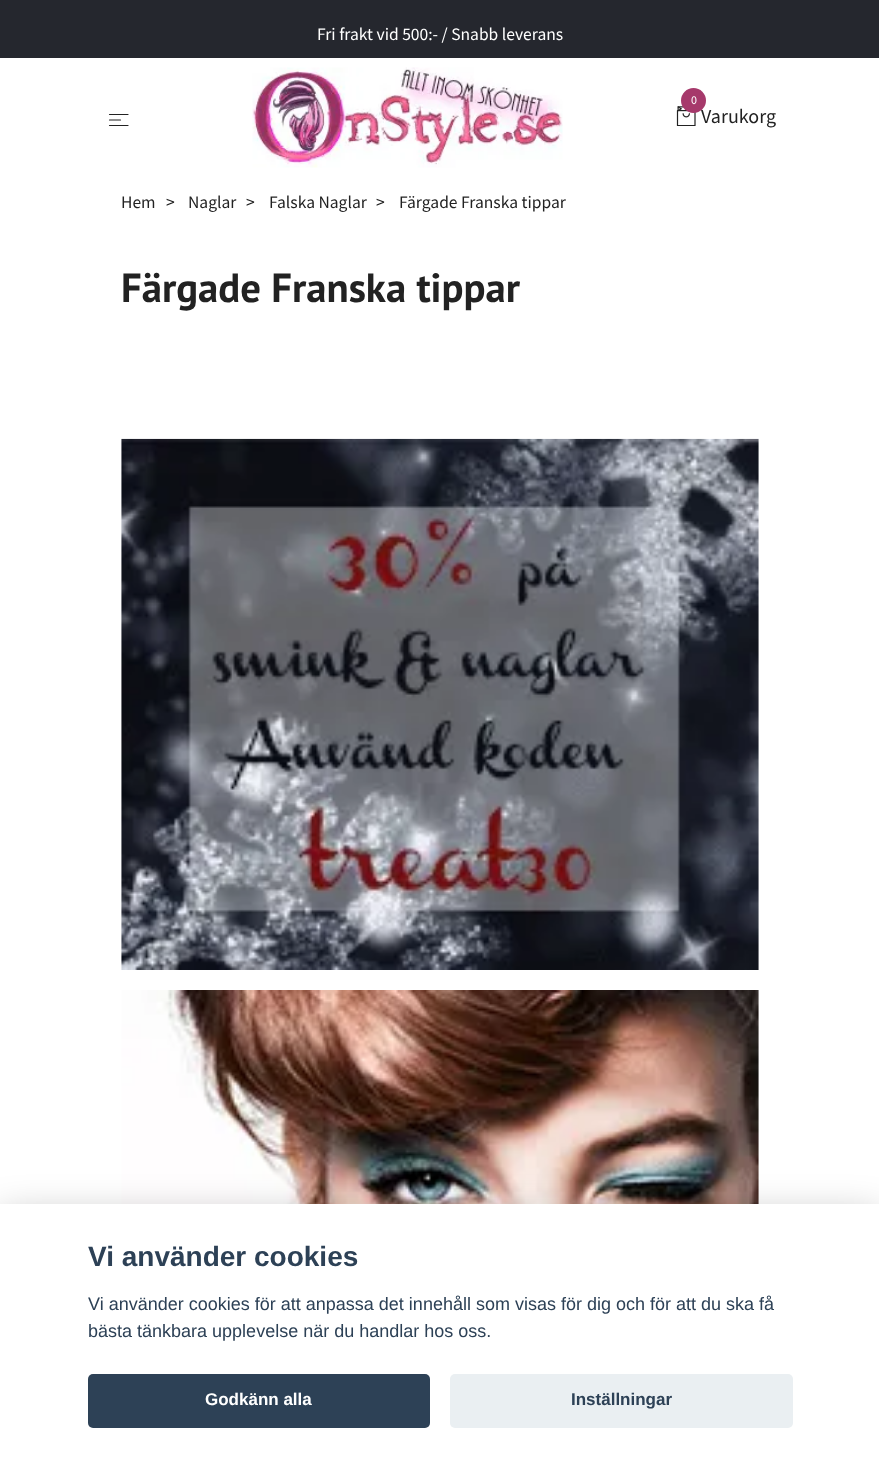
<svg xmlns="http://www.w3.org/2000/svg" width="879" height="1465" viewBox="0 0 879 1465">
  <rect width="100%" height="100%" fill="#fff"/>
  <path d="M0 0h879v58H0z" fill="#25272e"/>
  <path d="M109.5 114.5H128M109.5 120H120.5M109.5 125.5H128" fill="none" stroke="#222" stroke-width="1.2" stroke-linecap="round" stroke-linejoin="round"/>
  <image x="252" y="67" width="311" height="101" href="img/1.png"/>
  <image x="676" y="106" width="20" height="20" href="img/2.png"/>
  <image x="121" y="438" width="638" height="532" href="img/3.png"/>
  <image x="121" y="990" width="638" height="214" href="img/4.png"/>
  <path d="M0 1216h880v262H0z" fill="#02020347" filter="blur(19px)"/>
  <path d="M0 1204h879v261H0z" fill="#fff"/>
  <rect x="88" y="1374" width="342" height="54" rx="5" fill="#2d4156"/>
  <rect x="450" y="1374" width="343" height="54" rx="5" fill="#eaeff2"/>
  <text x="317" y="40" font-family="Source Sans Pro" font-size="17.5" fill="#fff">Fri frakt vid 500:- / Snabb leverans</text>
  <text x="701" y="123" font-family="Source Sans Pro" font-size="20" fill="#222">Varukorg</text>
  <circle cx="693.5" cy="100.5" r="12.5" fill="#a6396b"/>
  <text x="691" y="104" font-family="Source Sans Pro" font-size="12" fill="#fff">0</text>
  <g font-family="Source Sans Pro" font-size="17.5" fill="#222">
    <text x="121" y="208">Hem</text>
    <text x="166" y="208">&gt;</text>
    <text x="188" y="208">Naglar</text>
    <text x="246" y="208">&gt;</text>
    <text x="269" y="208">Falska Naglar</text>
    <text x="376" y="208">&gt;</text>
    <text x="399" y="208">Färgade Franska tippar</text>
  </g>
  <text x="121" y="302" font-family="PT Sans" font-size="40.75" font-weight="bold" fill="#222">Färgade Franska tippar</text>
  <text x="88" y="1266" font-family="Liberation Sans" font-size="28" font-weight="bold" fill="#2d4156">Vi använder cookies</text>
  <g font-family="Liberation Sans" font-size="18" fill="#2d4156">
    <text x="88" y="1310">Vi använder cookies för att anpassa det innehåll som visas för dig och för att du ska få</text>
    <text x="88" y="1337">bästa tänkbara upplevelse när du handlar hos oss.</text>
  </g>
  <text x="205" y="1405" font-family="Liberation Sans" font-size="17" font-weight="bold" fill="#fff">Godkänn alla</text>
  <text x="571" y="1405" font-family="Liberation Sans" font-size="17" font-weight="bold" fill="#2d4156">Inställningar</text>
</svg>
